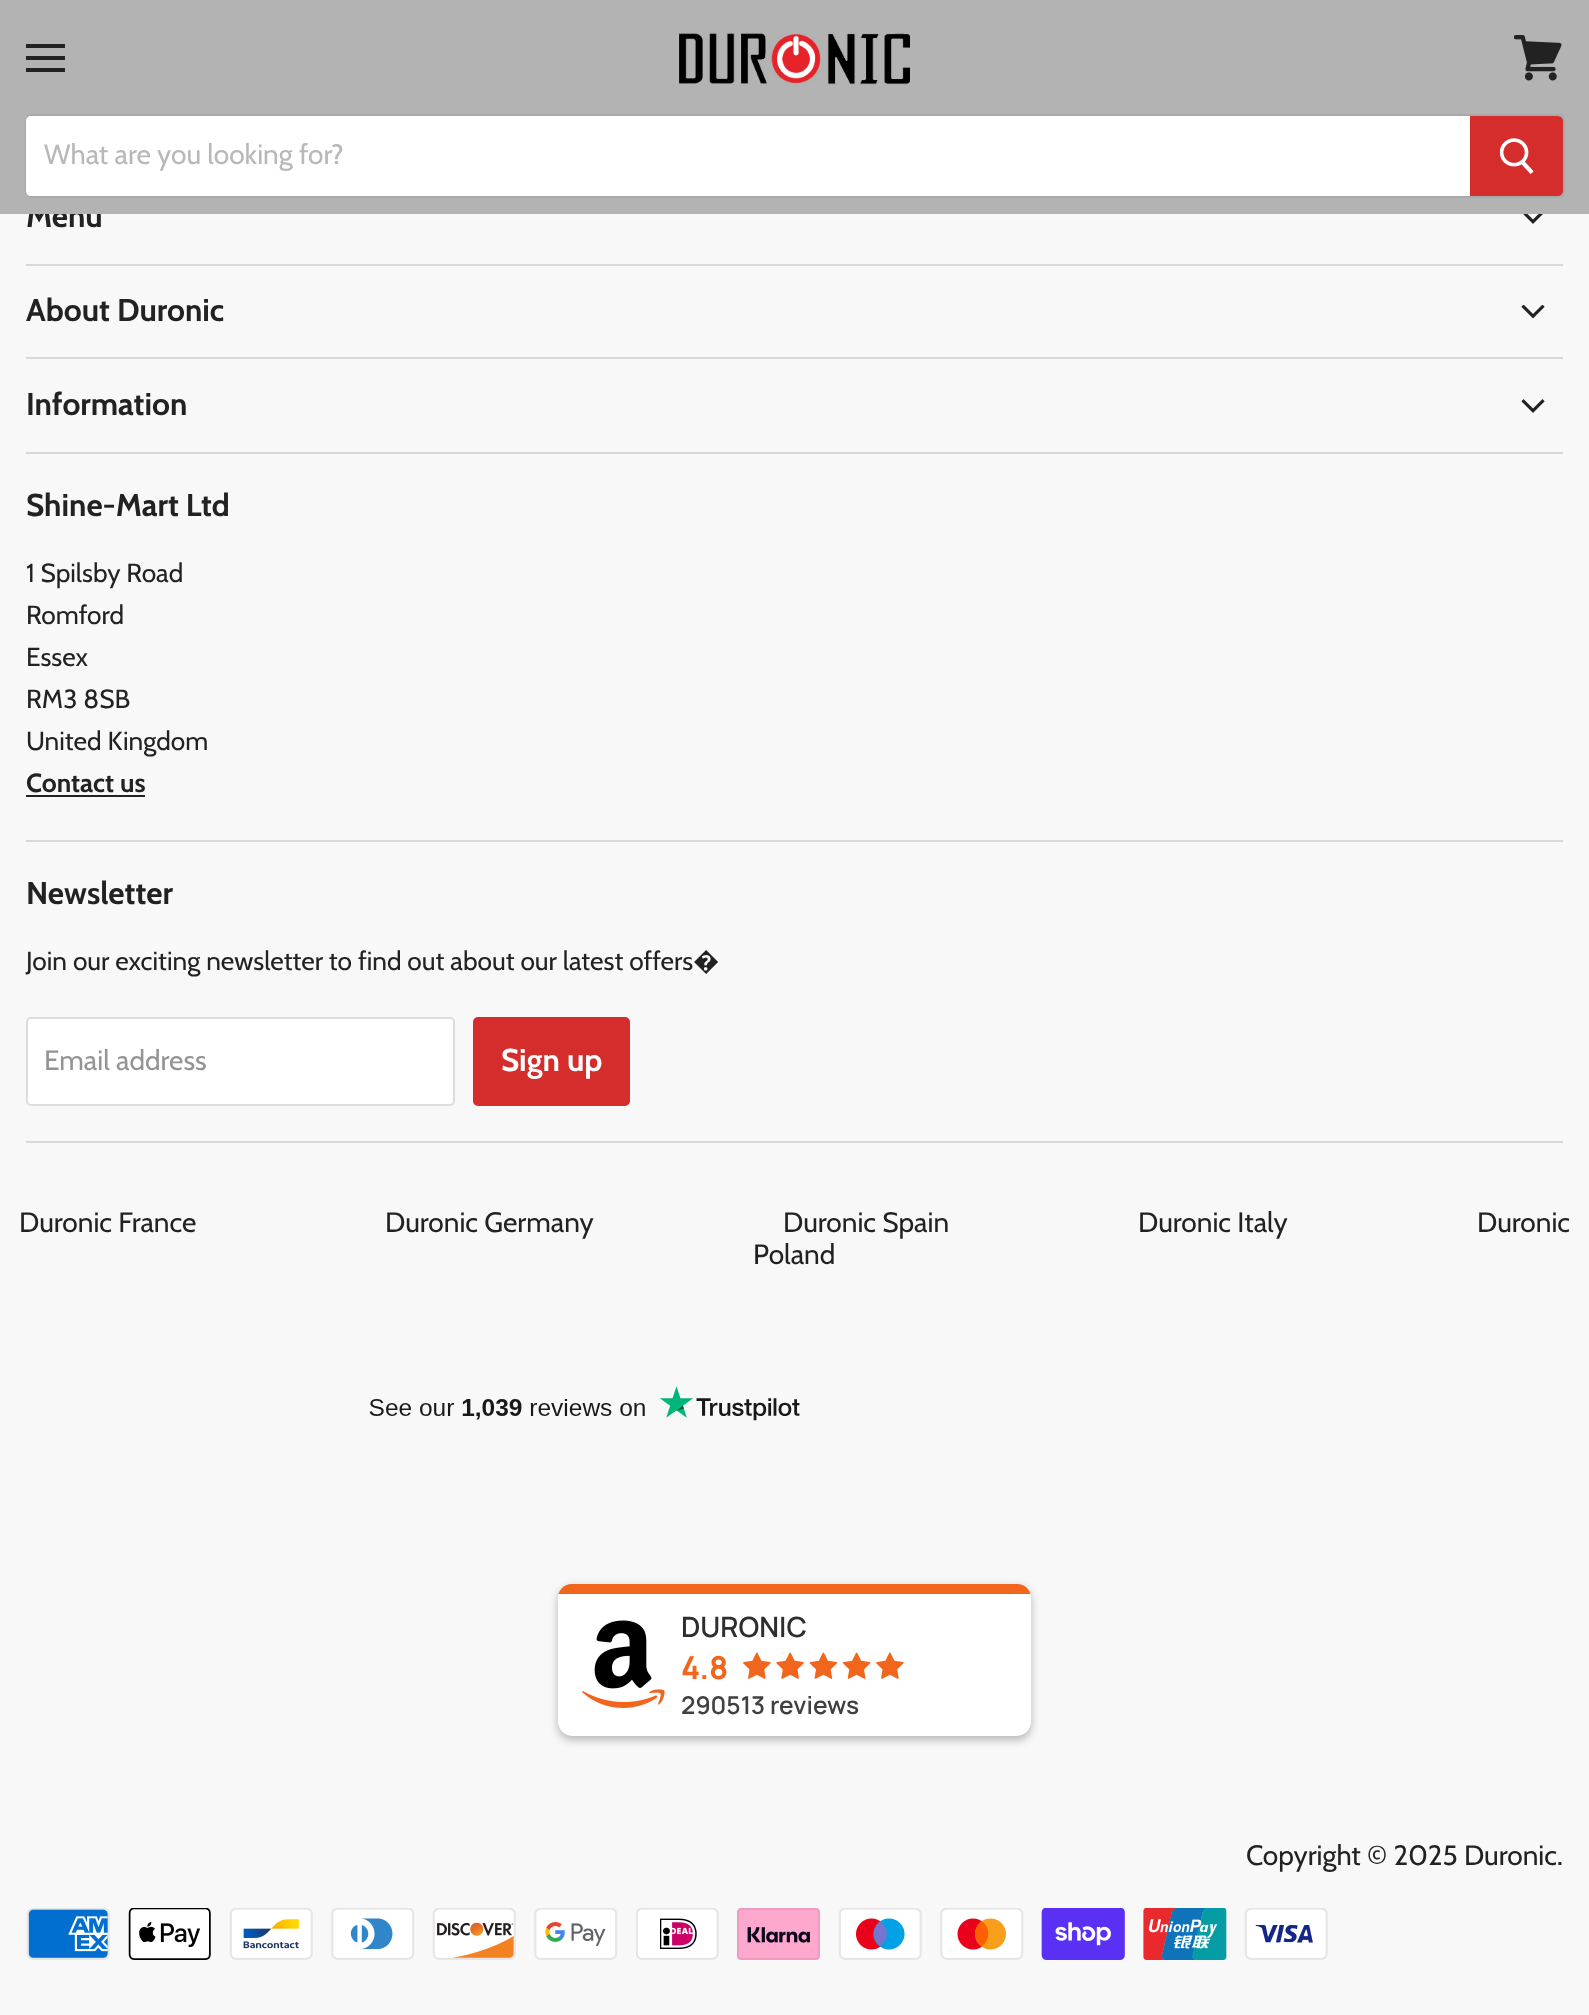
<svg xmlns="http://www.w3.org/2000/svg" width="1589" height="2015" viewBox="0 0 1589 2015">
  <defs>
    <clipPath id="clip1"><rect x="558" y="1584" width="473" height="152" rx="14"/></clipPath>
  </defs>
  <rect width="100%" height="100%" fill="#f8f8f8"/>
  <path d="M26 264h1537v2H26z" fill="#d8d8d8"/>
  <image x="1523" y="214" width="20" height="10" href="img/4.png"/>
  <path d="M26 357h1537v2H26z" fill="#d8d8d8"/>
  <image x="1521" y="305" width="24" height="14" href="img/5.png"/>
  <path d="M26 452h1537v2H26z" fill="#d8d8d8"/>
  <image x="1521" y="399" width="24" height="14" href="img/6.png"/>
  <path d="M26 840h1537v2H26z" fill="#d8d8d8"/>
  <path d="M26 795h119v2H26z" fill="#222"/>
  <path d="M26 1141h1537v2H26z" fill="#d8d8d8"/>
  <rect x="27" y="1018" width="427" height="87" rx="4" fill="#fff" stroke="#ddd" stroke-width="2"/>
  <rect x="474" y="1018" width="155" height="87" rx="4" fill="#d52c2c" stroke="#d52c2c" stroke-width="2"/>
  <image x="369" y="1386" width="431" height="35" href="img/7.png"/>
  <rect x="558" y="1587" width="473" height="153" rx="14" fill="#00000042" filter="blur(4.5px)"/>
  <g clip-path="url(#clip1)">
    <path d="M558 1584h473v10H558z" fill="#f1651d"/>
    <path d="M558 1594H1031V1722C1031 1729.5 1024.5 1736 1017 1736H572C564.5 1736 558 1729.5 558 1722Z" fill="#fff"/>
  </g>
  <image x="582" y="1620" width="83" height="88" href="img/8.png"/>
  <image x="743" y="1652" width="28" height="27" href="img/9.png"/>
  <image x="776" y="1652" width="28" height="27" href="img/10.png"/>
  <image x="809" y="1652" width="29" height="27" href="img/11.png"/>
  <image x="842" y="1652" width="29" height="27" href="img/12.png"/>
  <image x="876" y="1652" width="28" height="27" href="img/9.png"/>
  <image x="26" y="1908" width="84" height="52" href="img/13.png"/>
  <image x="128" y="1908" width="83" height="52" href="img/14.png"/>
  <image x="229" y="1908" width="84" height="52" href="img/15.png"/>
  <image x="331" y="1908" width="84" height="52" href="img/16.png"/>
  <image x="432" y="1908" width="84" height="52" href="img/17.png"/>
  <image x="534" y="1908" width="84" height="52" href="img/18.png"/>
  <image x="636" y="1908" width="83" height="52" href="img/19.png"/>
  <image x="737" y="1908" width="83" height="52" href="img/20.png"/>
  <image x="838" y="1908" width="84" height="52" href="img/21.png"/>
  <image x="940" y="1908" width="84" height="52" href="img/22.png"/>
  <image x="1041" y="1908" width="84" height="52" href="img/23.png"/>
  <image x="1143" y="1908" width="84" height="52" href="img/24.png"/>
  <image x="1244" y="1908" width="84" height="52" href="img/25.png"/>
  <text x="26" y="227" font-family="Cabin" font-size="31.5" font-weight="bold" fill="#222">Menu</text>
  <path d="M0 0h1589v214H0z" fill="#b3b3b3"/>
  <rect x="26" y="115" width="1538" height="82" rx="6" fill="none" stroke="#7f7f7f33" stroke-width="2"/>
  <path d="M31 116H1470V196H31C28 196 26 194 26 191V121C26 118 28 116 31 116Z" fill="#fff"/>
  <text x="44" y="164" font-family="Cabin" font-size="28" fill="#b8b8b8">What are you looking for?</text>
  <path d="M1471 117H1558C1560 117 1562 119 1562 121V191C1562 193 1560 195 1558 195H1471Z" fill="#d52c2c" stroke="#d52c2c" stroke-width="2"/>
  <image x="1500" y="138" width="34" height="37" href="img/3.png"/>
  <image x="1514" y="35" width="48" height="46" href="img/1.png"/>
  <path d="M26 68h39v4H26z" fill="#222"/>
  <path d="M26 56h39v4H26z" fill="#222"/>
  <path d="M26 44h39v4H26z" fill="#222"/>
  <image x="678" y="33" width="232" height="52" href="img/2.png"/>
  <g font-family="Cabin" font-size="31.5" font-weight="bold" fill="#222">
    <text x="26" y="321">About Duronic</text>
    <text x="26" y="415">Information</text>
    <text x="26" y="516">Shine-Mart Ltd</text>
  </g>
  <g font-family="Cabin" font-size="26.25" fill="#222">
    <text x="26" y="582">1 Spilsby Road</text>
    <text x="26" y="624">Romford</text>
    <text x="26" y="666">Essex</text>
    <text x="26" y="708">RM3 8SB</text>
    <text x="26" y="750">United Kingdom</text>
  </g>
  <text x="26" y="792" font-family="Cabin" font-size="26.25" font-weight="bold" fill="#222">Contact us</text>
  <text x="26" y="904" font-family="Cabin" font-size="31.5" font-weight="bold" fill="#222">Newsletter</text>
  <text x="26" y="970" font-family="Cabin" font-size="26.25" fill="#222">Join our exciting newsletter to find out about our latest offers</text>
  <text x="693" y="970" font-family="Noto Sans" font-size="26.25" fill="#222">�</text>
  <text x="44" y="1070" font-family="Cabin" font-size="28" fill="#949494">Email address</text>
  <text x="501" y="1071" font-family="Cabin" font-size="31.5" font-weight="bold" fill="#fff">Sign up</text>
  <g font-family="Cabin" font-size="28" fill="#222">
    <text x="19" y="1232">Duronic France</text>
    <text x="385" y="1232">Duronic Germany</text>
    <text x="783" y="1232">Duronic Spain</text>
    <text x="1138" y="1232">Duronic Italy</text>
    <text x="1477" y="1232">Duronic</text>
    <text x="753" y="1264">Poland</text>
  </g>
  <text x="681" y="1637" font-family="Manrope" font-size="28" font-weight="600" fill="#2e2e2e">DURONIC</text>
  <text x="681" y="1679" font-family="Manrope" font-size="31.5" font-weight="bold" fill="#f1651d">4.8</text>
  <text x="681" y="1714" font-family="Manrope" font-size="24.5" font-weight="600" fill="#404040">290513 reviews</text>
  <text x="1246" y="1865" font-family="Cabin" font-size="28" fill="#222">Copyright © 2025 Duronic.</text>
</svg>
